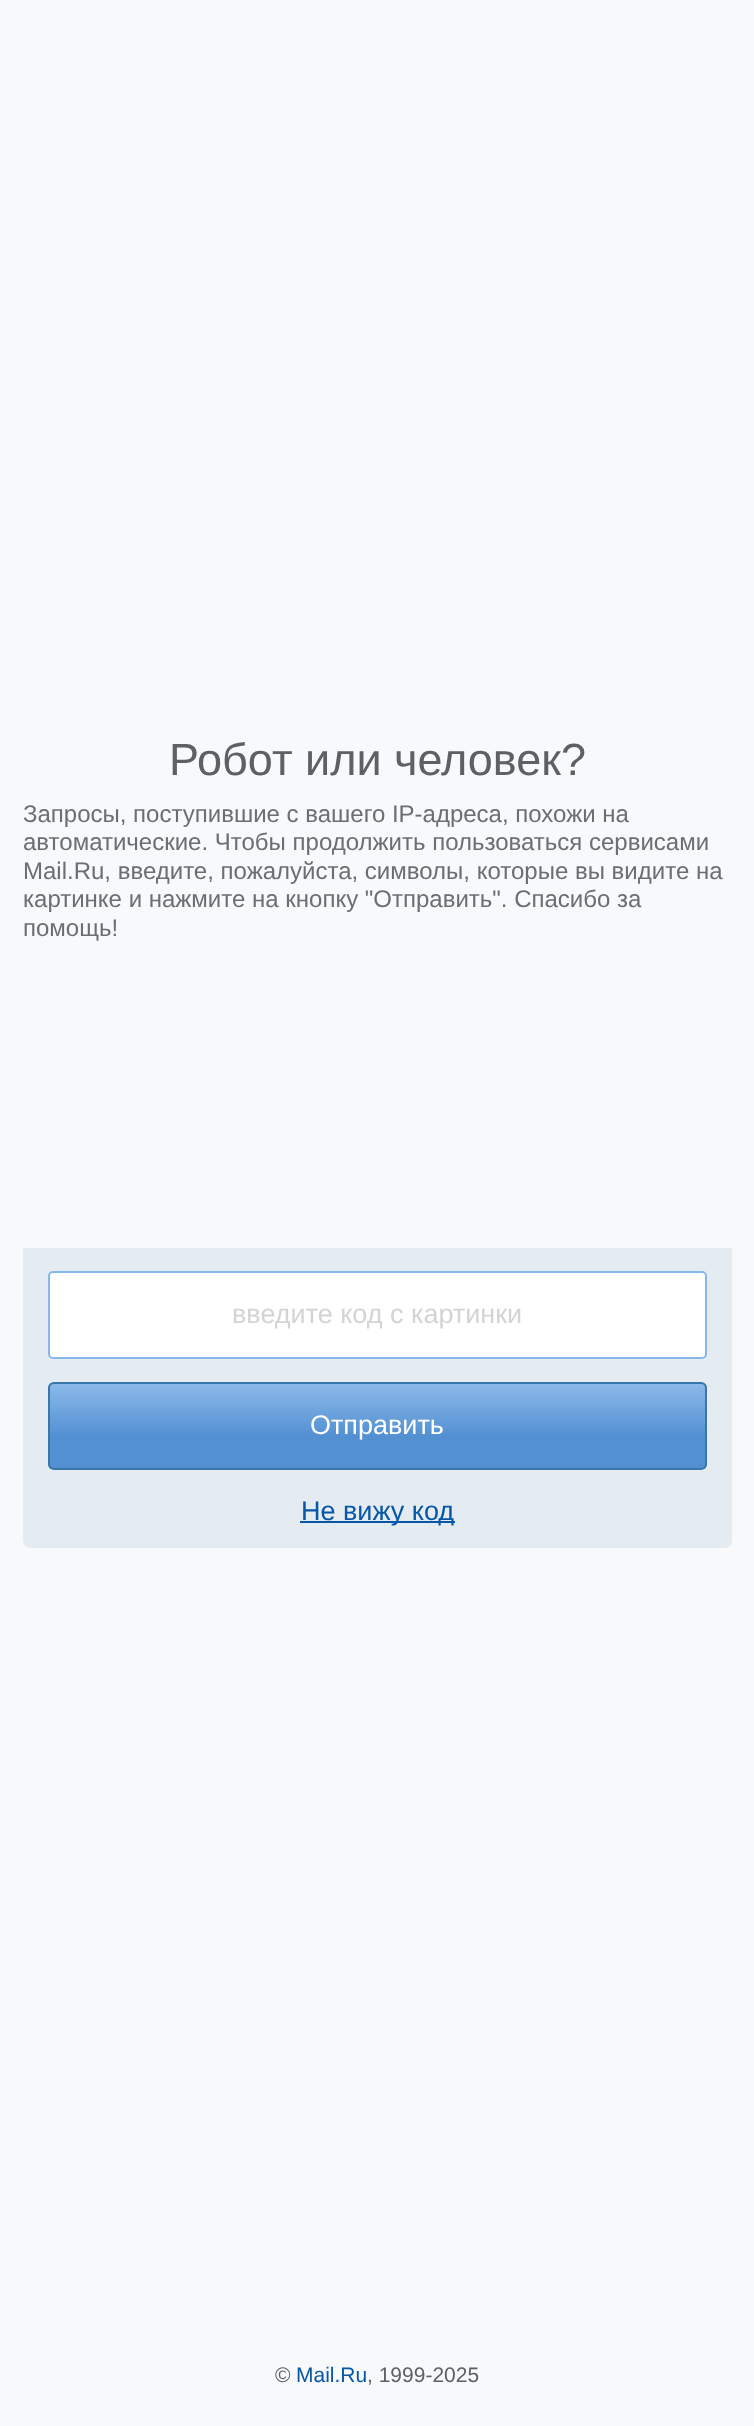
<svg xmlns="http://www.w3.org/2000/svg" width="754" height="2426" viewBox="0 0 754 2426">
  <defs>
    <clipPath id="clip1"><rect x="48" y="1382" width="659" height="88" rx="6"/></clipPath>
    <linearGradient id="g1" gradientUnits="userSpaceOnUse" x1="377" y1="1383" x2="377" y2="1469"><stop offset="0" stop-color="#8cbaea"/><stop offset="0.62" stop-color="#5390d2"/></linearGradient>
  </defs>
  <rect width="100%" height="100%" fill="#f7f9fa"/>
  <path d="M23 1248H732V1540C732 1544.5 728.5 1548 724 1548H31C26.5 1548 23 1544.5 23 1540Z" fill="#e4ebf1"/>
  <rect x="49" y="1272" width="657" height="86" rx="4" fill="#fff" stroke="#85b8eb" stroke-width="2"/>
  <g clip-path="url(#clip1)">
    <path d="M48 1383h659v86H48z" fill="url(#g1)"/>
  </g>
  <rect x="49" y="1383" width="657" height="86" rx="5" fill="none" stroke="#3877a7" stroke-width="2"/>
  <path d="M300 1521h155v2H300z" fill="#0857a6"/>
  <text x="169" y="775" font-family="Liberation Sans" font-size="45" fill="#5e6061">Робот или человек?</text>
  <g font-family="Liberation Sans" font-size="24" fill="#6c6e6f">
    <text x="23" y="822">Запросы, поступившие с вашего IP-адреса, похожи на</text>
    <text x="23" y="850">автоматические. Чтобы продолжить пользоваться сервисами</text>
    <text x="23" y="879">Mail.Ru, введите, пожалуйста, символы, которые вы видите на</text>
    <text x="23" y="907">картинке и нажмите на кнопку "Отправить". Спасибо за</text>
    <text x="23" y="936">помощь!</text>
  </g>
  <text x="232" y="1323" font-family="Liberation Sans" font-size="27" fill="#d4d4d4">введите код с картинки</text>
  <text x="310" y="1434" font-family="Liberation Sans" font-size="27" fill="#fff">Отправить</text>
  <text x="301" y="1520" font-family="Liberation Sans" font-size="27" fill="#0857a6">Не вижу код</text>
  <text x="275" y="2382" font-family="Liberation Sans" font-size="21" fill="#5e6061">©</text>
  <text x="296" y="2382" font-family="Liberation Sans" font-size="21" fill="#0857a6">Mail.Ru</text>
  <text x="367" y="2382" font-family="Liberation Sans" font-size="21" fill="#5e6061">, 1999-2025</text>
</svg>
